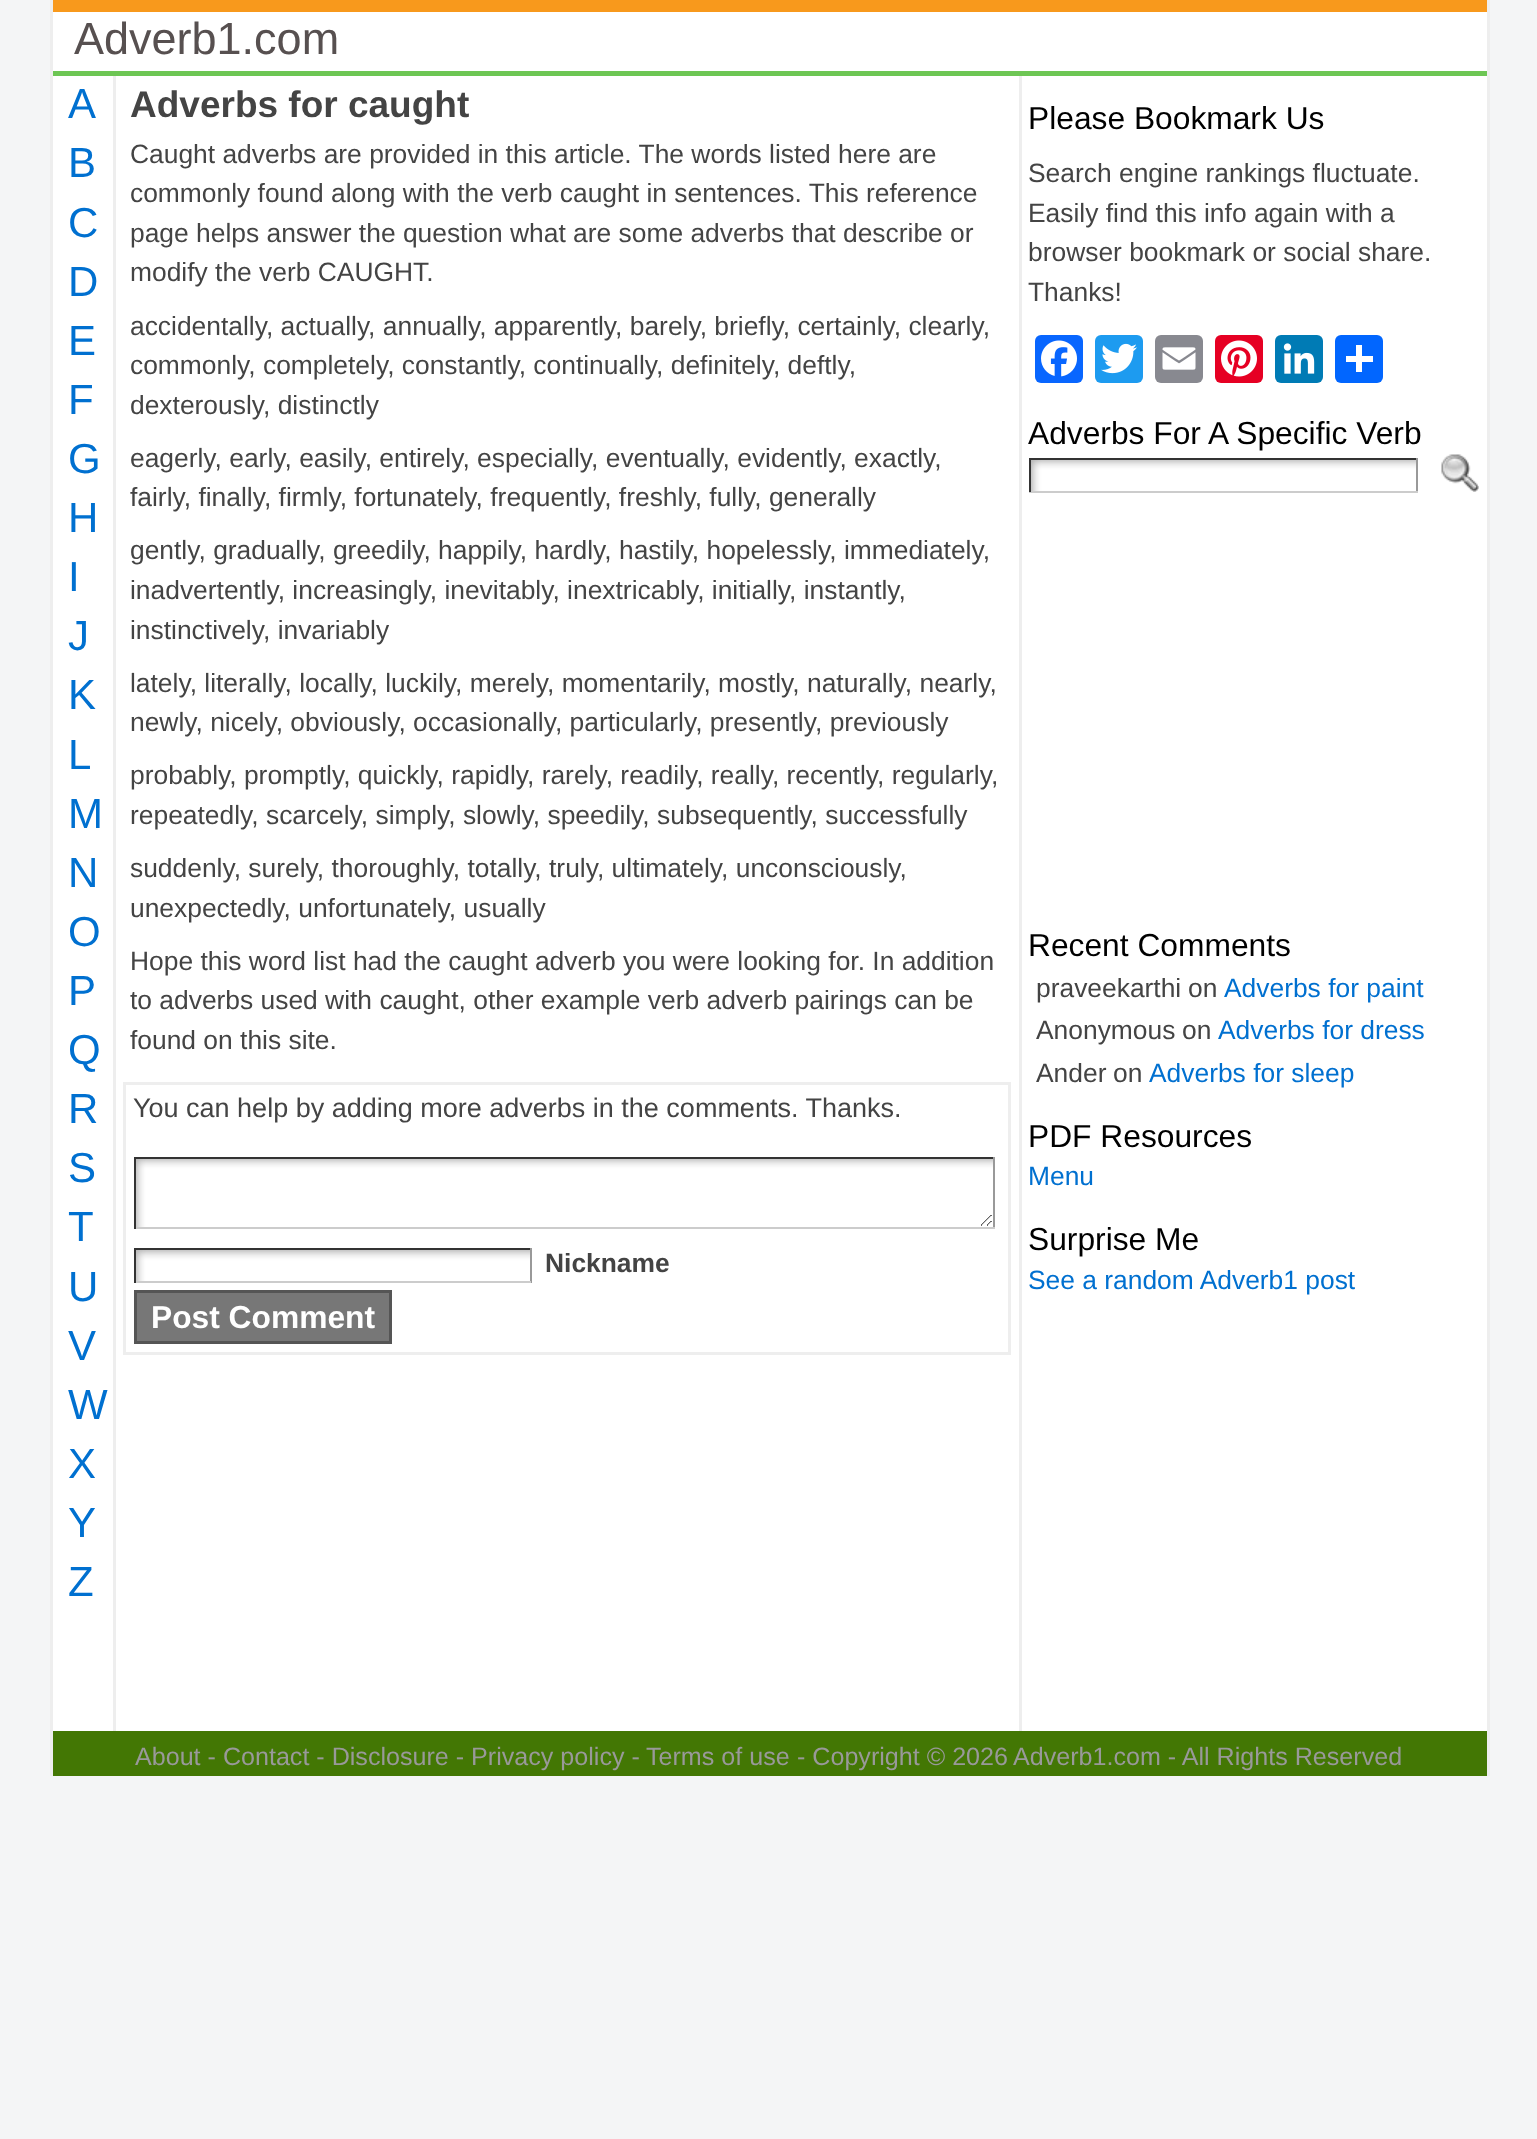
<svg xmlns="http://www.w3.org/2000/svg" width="1537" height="2139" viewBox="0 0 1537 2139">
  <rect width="100%" height="100%" fill="#f4f5f6"/>
  <path d="M53 12h1434v1719H53z" fill="#fff"/>
  <path d="M1487 0h3v1776H1487z" fill="#eee"/>
  <path d="M50 0h3v1776H50z" fill="#eee"/>
  <path d="M53 0h1434v12H53z" fill="#f8991c"/>
  <path d="M1019 75h3v1656H1019z" fill="#eee"/>
  <path d="M113 75h3v1656H113z" fill="#eee"/>
  <path d="M53 71h1434v5H53z" fill="#6dc654"/>
  <path d="M124.5 1083.5h885v270H124.5z" fill="none" stroke="#eee" stroke-width="3"/>
  <image x="136" y="1159" width="857" height="68" href="img/1.png"/>
  <path d="M134 1157h861v2H134z" fill="#333"/>
  <path d="M993 1157h2v72H993z" fill="#999"/>
  <path d="M134 1227h861v2H134z" fill="#ccc"/>
  <path d="M134 1157h2v72H134z" fill="#333"/>
  <image x="136" y="1250" width="394" height="31" href="img/2.png"/>
  <path d="M134 1248h397v2H134z" fill="#333"/>
  <path d="M530 1248h2v35H530z" fill="#999"/>
  <path d="M134 1281h397v2H134z" fill="#ccc"/>
  <path d="M134 1248h2v35H134z" fill="#333"/>
  <path d="M135.5 1291.5h255v51H135.5z" fill="#777" stroke="#555" stroke-width="3"/>
  <rect x="1035" y="335" width="48" height="48" rx="6" fill="#0866ff"/>
  <image x="1041" y="340" width="36" height="37" href="img/3.png"/>
  <rect x="1095" y="335" width="48" height="48" rx="6" fill="#1d9bf0"/>
  <image x="1101" y="343" width="36" height="31" href="img/4.png"/>
  <rect x="1155" y="335" width="48" height="48" rx="6" fill="#888990"/>
  <image x="1162" y="347" width="34" height="23" href="img/5.png"/>
  <rect x="1215" y="335" width="48" height="48" rx="6" fill="#e60023"/>
  <image x="1221" y="340" width="36" height="37" href="img/6.png"/>
  <rect x="1275" y="335" width="48" height="48" rx="6" fill="#007bb5"/>
  <image x="1283" y="343" width="32" height="31" href="img/7.png"/>
  <rect x="1335" y="335" width="48" height="48" rx="6" fill="#0166ff"/>
  <path d="M1356 345h6v27H1356z" fill="#fff"/>
  <path d="M1346 356h27v6H1346z" fill="#fff"/>
  <image x="1031" y="460" width="385" height="31" href="img/8.png"/>
  <path d="M1029 458h389v2H1029z" fill="#333"/>
  <path d="M1416 458h2v34H1416z" fill="#999"/>
  <path d="M1029 491h389v2H1029z" fill="#ccc"/>
  <path d="M1029 458h2v34H1029z" fill="#333"/>
  <image x="1441" y="454" width="38" height="38" href="img/9.png"/>
  <path d="M53 1731h1434v45H53z" fill="#437704"/>
  <text x="74" y="54" font-family="Liberation Sans" font-size="45" fill="#575050">Adverb1.com</text>
  <g font-family="Liberation Sans" font-size="42" fill="#0070d0">
    <text x="68" y="118">A</text>
    <text x="68" y="177">B</text>
    <text x="68" y="237">C</text>
    <text x="68" y="296">D</text>
    <text x="68" y="355">E</text>
    <text x="68" y="414">F</text>
    <text x="68" y="473">G</text>
    <text x="68" y="532">H</text>
    <text x="68" y="591">I</text>
    <text x="68" y="650">J</text>
    <text x="68" y="709">K</text>
    <text x="68" y="769">L</text>
    <text x="68" y="828">M</text>
    <text x="68" y="887">N</text>
    <text x="68" y="946">O</text>
    <text x="68" y="1005">P</text>
    <text x="68" y="1064">Q</text>
    <text x="68" y="1123">R</text>
    <text x="68" y="1182">S</text>
    <text x="68" y="1241">T</text>
    <text x="68" y="1301">U</text>
    <text x="68" y="1360">V</text>
    <text x="68" y="1419">W</text>
    <text x="68" y="1478">X</text>
    <text x="68" y="1537">Y</text>
    <text x="68" y="1596">Z</text>
  </g>
  <text x="130" y="117" font-family="Liberation Sans" font-size="37" font-weight="bold" fill="#444">Adverbs for caught</text>
  <g font-family="Liberation Sans" font-size="26.4" fill="#444">
    <text x="130" y="163">Caught adverbs are provided in this article. The words listed here are</text>
    <text x="130" y="202">commonly found along with the verb caught in sentences. This reference</text>
    <text x="130" y="242">page helps answer the question what are some adverbs that describe or</text>
    <text x="130" y="281">modify the verb CAUGHT.</text>
    <text x="130" y="335">accidentally, actually, annually, apparently, barely, briefly, certainly, clearly,</text>
    <text x="130" y="374">commonly, completely, constantly, continually, definitely, deftly,</text>
    <text x="130" y="414">dexterously, distinctly</text>
    <text x="130" y="467">eagerly, early, easily, entirely, especially, eventually, evidently, exactly,</text>
    <text x="130" y="506">fairly, finally, firmly, fortunately, frequently, freshly, fully, generally</text>
    <text x="130" y="559">gently, gradually, greedily, happily, hardly, hastily, hopelessly, immediately,</text>
    <text x="130" y="599">inadvertently, increasingly, inevitably, inextricably, initially, instantly,</text>
    <text x="130" y="639">instinctively, invariably</text>
    <text x="130" y="692">lately, literally, locally, luckily, merely, momentarily, mostly, naturally, nearly,</text>
    <text x="130" y="731">newly, nicely, obviously, occasionally, particularly, presently, previously</text>
    <text x="130" y="784">probably, promptly, quickly, rapidly, rarely, readily, really, recently, regularly,</text>
    <text x="130" y="824">repeatedly, scarcely, simply, slowly, speedily, subsequently, successfully</text>
    <text x="130" y="877">suddenly, surely, thoroughly, totally, truly, ultimately, unconsciously,</text>
    <text x="130" y="917">unexpectedly, unfortunately, usually</text>
    <text x="130" y="970">Hope this word list had the caught adverb you were looking for. In addition</text>
    <text x="130" y="1009">to adverbs used with caught, other example verb adverb pairings can be</text>
    <text x="130" y="1049">found on this site.</text>
  </g>
  <text x="133" y="1117" font-family="Liberation Sans" font-size="27" fill="#444">You can help by adding more adverbs in the comments. Thanks.</text>
  <text x="545" y="1272" font-family="Liberation Sans" font-size="26.4" font-weight="bold" fill="#444">Nickname</text>
  <text x="151" y="1328" font-family="Liberation Sans" font-size="31.75" font-weight="bold" fill="#fff">Post Comment</text>
  <text x="1028" y="129" font-family="Liberation Sans" font-size="31.75" fill="#000">Please Bookmark Us</text>
  <g font-family="Liberation Sans" font-size="26.4" fill="#444">
    <text x="1028" y="182">Search engine rankings fluctuate.</text>
    <text x="1028" y="222">Easily find this info again with a</text>
    <text x="1028" y="261">browser bookmark or social share.</text>
    <text x="1028" y="301">Thanks!</text>
  </g>
  <g font-family="Liberation Sans" font-size="31.75" fill="#000">
    <text x="1028" y="444">Adverbs For A Specific Verb</text>
    <text x="1028" y="956">Recent Comments</text>
  </g>
  <g font-family="Liberation Sans" font-size="26.4" fill="#444">
    <text x="1036" y="997">praveekarthi</text>
    <text x="1188" y="997">on</text>
  </g>
  <text x="1224" y="997" font-family="Liberation Sans" font-size="26.4" fill="#0070d0">Adverbs for paint</text>
  <g font-family="Liberation Sans" font-size="26.4" fill="#444">
    <text x="1036" y="1039">Anonymous</text>
    <text x="1182" y="1039">on</text>
  </g>
  <text x="1218" y="1039" font-family="Liberation Sans" font-size="26.4" fill="#0070d0">Adverbs for dress</text>
  <g font-family="Liberation Sans" font-size="26.4" fill="#444">
    <text x="1036" y="1082">Ander</text>
    <text x="1113" y="1082">on</text>
  </g>
  <text x="1149" y="1082" font-family="Liberation Sans" font-size="26.4" fill="#0070d0">Adverbs for sleep</text>
  <text x="1028" y="1147" font-family="Liberation Sans" font-size="31.75" fill="#000">PDF Resources</text>
  <text x="1028" y="1185" font-family="Liberation Sans" font-size="26.4" fill="#0070d0">Menu</text>
  <text x="1028" y="1250" font-family="Liberation Sans" font-size="31.75" fill="#000">Surprise Me</text>
  <text x="1028" y="1289" font-family="Liberation Sans" font-size="26.4" fill="#0070d0">See a random Adverb1 post</text>
  <g font-family="Liberation Sans" font-size="25.1" fill="#999">
    <text x="135" y="1765">About - Contact - Disclosure - Privacy policy -</text>
    <text x="646" y="1765">Terms of use</text>
    <text x="797" y="1765">- Copyright © 2026</text>
    <text x="1013" y="1765">Adverb1.com - All Rights Reserved</text>
  </g>
</svg>
